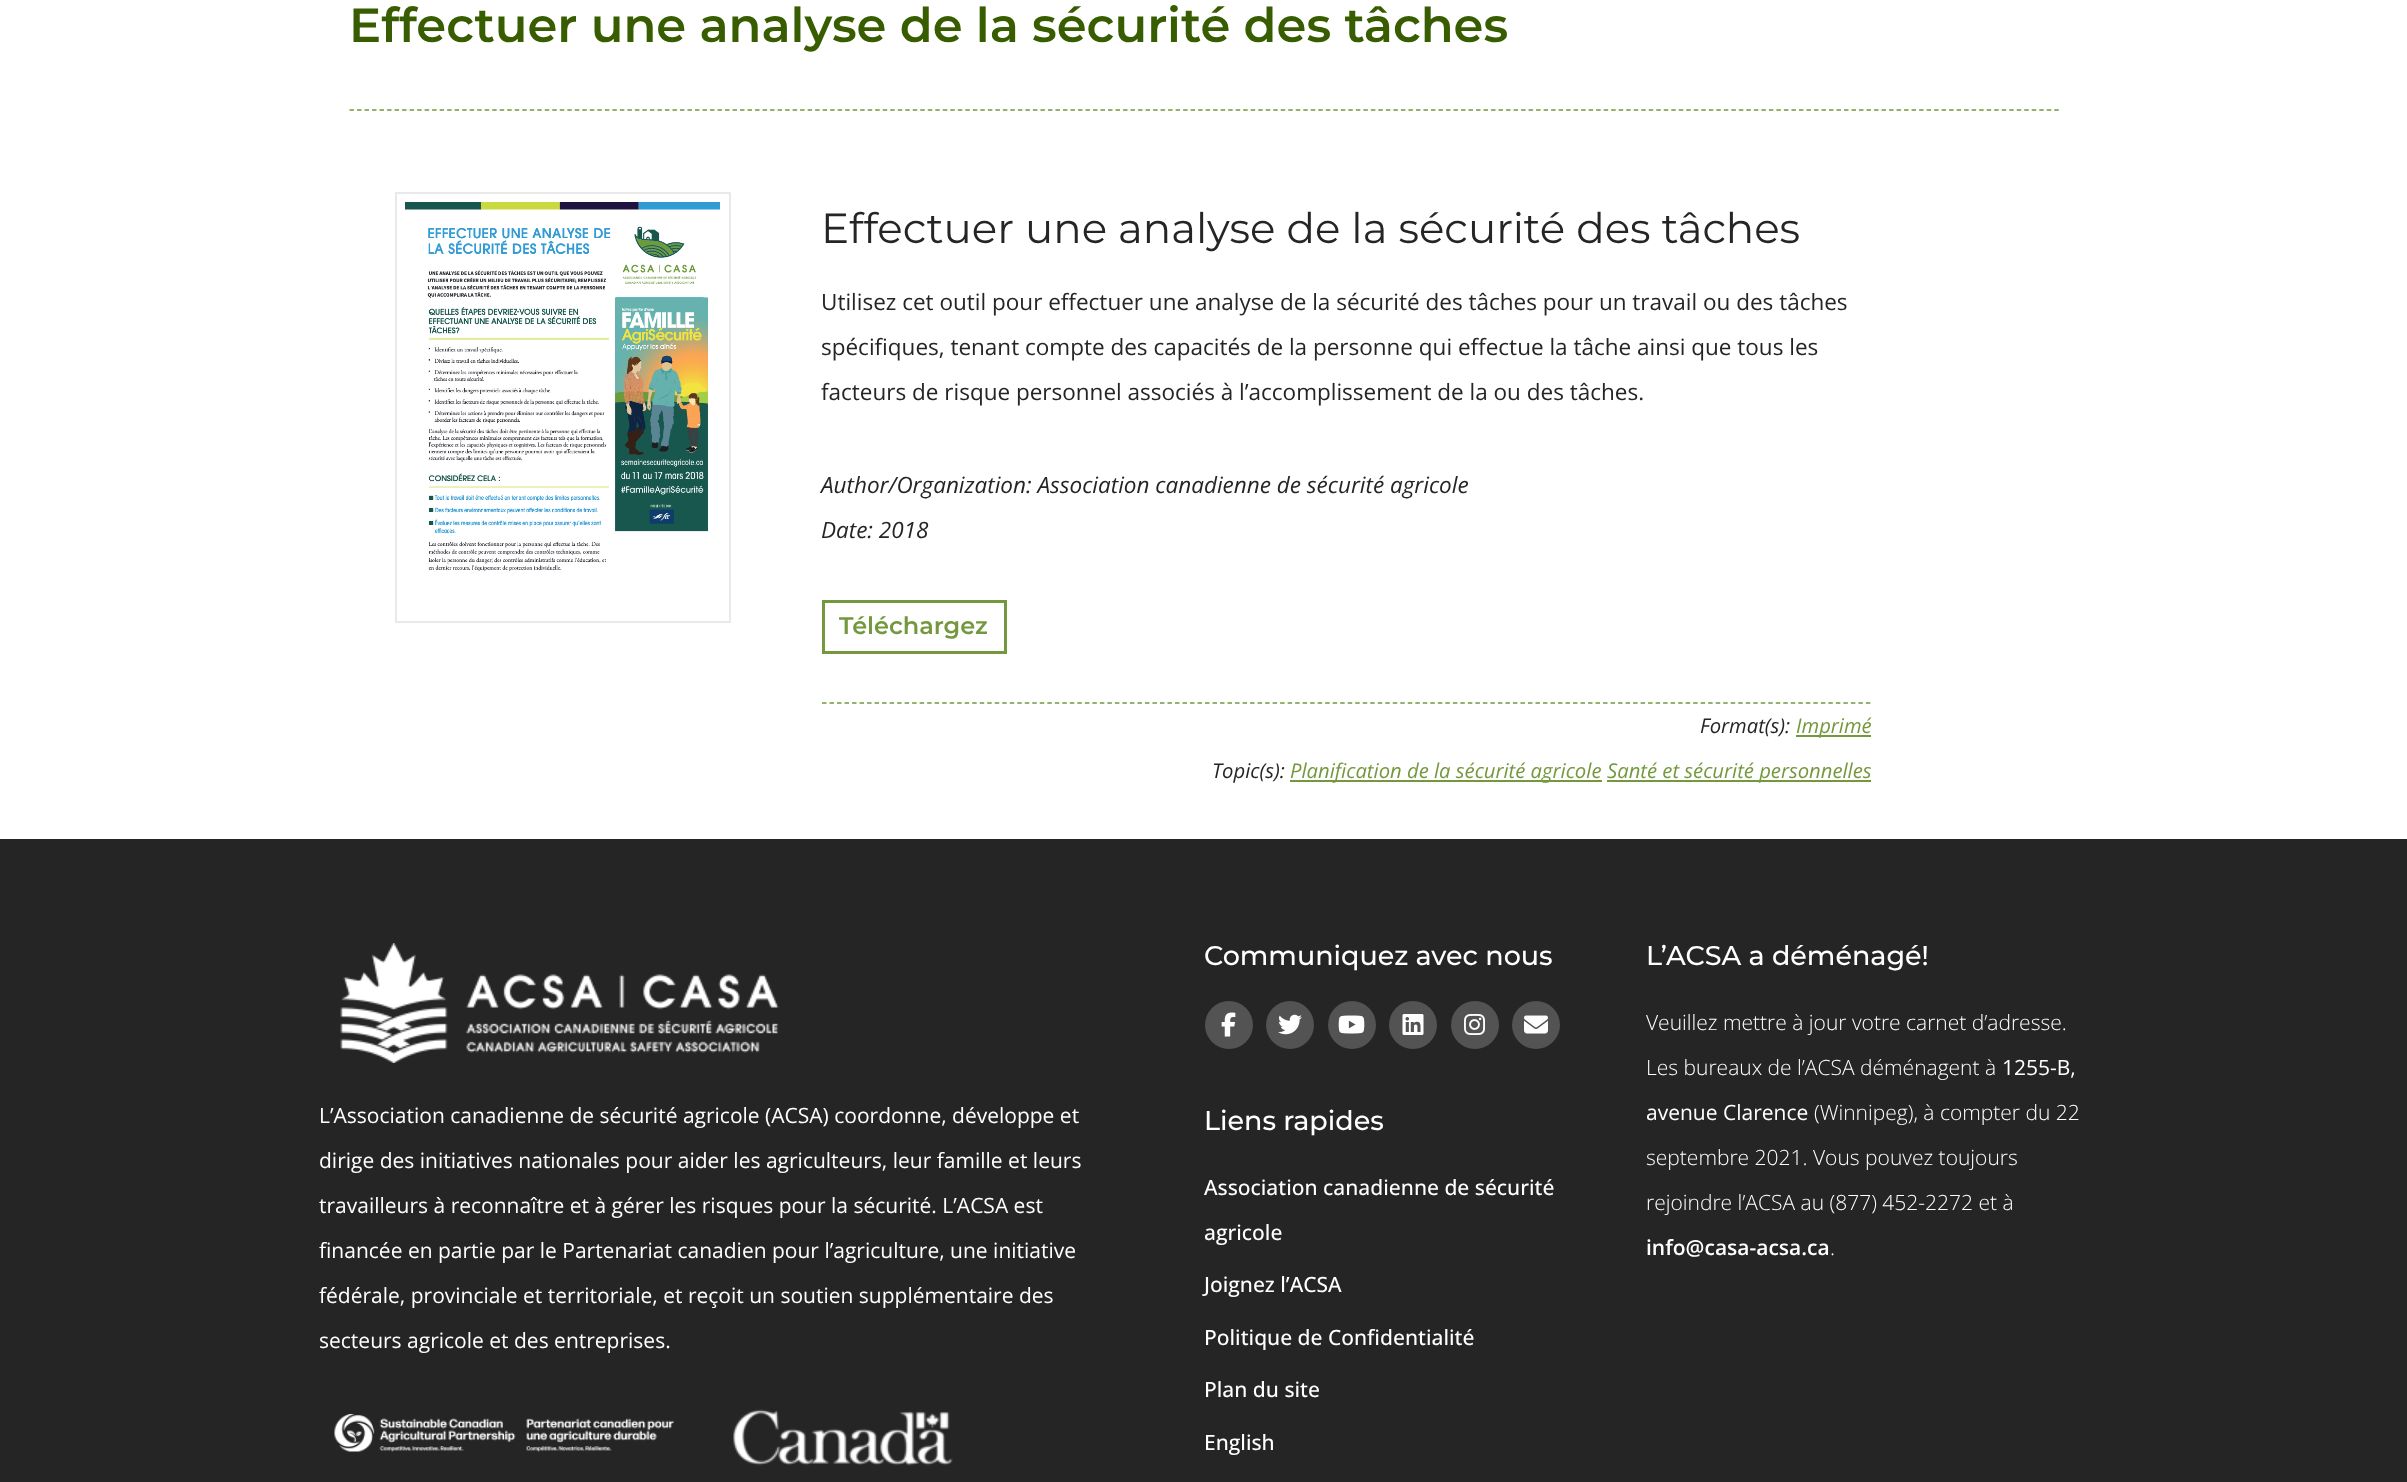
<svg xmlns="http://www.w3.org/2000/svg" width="2407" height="1482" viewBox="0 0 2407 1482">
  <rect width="100%" height="100%" fill="#fff"/>
  <path d="M349.5 110H2059.5" fill="none" stroke="#74983e" stroke-width="1.5" stroke-dasharray="4.5 3.01"/>
  <path d="M396 193h334v429H396z" fill="none" stroke="#e9e9e9" stroke-width="2"/>
  <image x="405" y="202" width="315" height="369" href="img/1.png"/>
  <path d="M823.5 601.5h182v51H823.5z" fill="none" stroke="#74983e" stroke-width="3"/>
  <path d="M822 703H1870.5" fill="none" stroke="#74983e" stroke-width="1.5" stroke-dasharray="4.5 3.01"/>
  <path d="M1796 735h75v2H1796z" fill="#74983e"/>
  <path d="M1290 780h312v2H1290z" fill="#74983e"/>
  <path d="M1607 780h264v2H1607z" fill="#74983e"/>
  <path d="M0 839h2407v643H0z" fill="#252525"/>
  <image x="340" y="943" width="439" height="120" href="img/2.png"/>
  <image x="334" y="1414" width="340" height="38" href="img/3.png"/>
  <image x="733" y="1409" width="220" height="57" href="img/4.png"/>
  <circle cx="1229" cy="1025" r="24" fill="#535353"/>
  <image x="1221" y="1012" width="15" height="25" href="img/5.png"/>
  <circle cx="1290" cy="1025" r="24" fill="#535353"/>
  <image x="1278" y="1014" width="24" height="21" href="img/6.png"/>
  <circle cx="1352" cy="1025" r="24" fill="#535353"/>
  <image x="1338" y="1015" width="27" height="19" href="img/7.png"/>
  <circle cx="1413" cy="1025" r="24" fill="#535353"/>
  <image x="1402" y="1014" width="22" height="21" href="img/8.png"/>
  <circle cx="1475" cy="1025" r="24" fill="#535353"/>
  <image x="1464" y="1014" width="21" height="21" href="img/9.png"/>
  <circle cx="1536" cy="1025" r="24" fill="#535353"/>
  <image x="1524" y="1015" width="24" height="19" href="img/10.png"/>
  <text x="349" y="42" font-family="Montserrat" font-size="48" font-weight="600" fill="#385d00">Effectuer une analyse de la sécurité des tâches</text>
  <text x="821" y="243" font-family="Montserrat" font-size="42" fill="#252525">Effectuer une analyse de la sécurité des tâches</text>
  <g font-family="Open Sans" font-size="22.5" fill="#252525">
    <text x="821" y="310">Utilisez cet outil pour effectuer une analyse de la sécurité des tâches pour un travail ou des tâches</text>
    <text x="821" y="355">spécifiques, tenant compte des capacités de la personne qui effectue la tâche ainsi que tous les</text>
    <text x="821" y="400">facteurs de risque personnel associés à l’accomplissement de la ou des tâches.</text>
  </g>
  <g font-family="Open Sans" font-size="22.5" font-style="italic" fill="#252525">
    <text x="821" y="493">Author/Organization: Association canadienne de sécurité agricole</text>
    <text x="821" y="538">Date: 2018</text>
  </g>
  <text x="839" y="634" font-family="Montserrat" font-size="24" font-weight="600" fill="#74983e">Téléchargez</text>
  <text x="1700" y="733" font-family="Open Sans" font-size="20.25" font-style="italic" fill="#252525">Format(s):</text>
  <text x="1796" y="733" font-family="Open Sans" font-size="20.25" font-style="italic" fill="#74983e">Imprimé</text>
  <text x="1212" y="778" font-family="Open Sans" font-size="20.25" font-style="italic" fill="#252525">Topic(s):</text>
  <g font-family="Open Sans" font-size="20.25" font-style="italic" fill="#74983e">
    <text x="1290" y="778">Planification de la sécurité agricole</text>
    <text x="1607" y="778">Santé et sécurité personnelles</text>
  </g>
  <g font-family="Open Sans" font-size="21" fill="#fff">
    <text x="319" y="1123">L’Association canadienne de sécurité agricole (ACSA) coordonne, développe et</text>
    <text x="319" y="1168">dirige des initiatives nationales pour aider les agriculteurs, leur famille et leurs</text>
    <text x="319" y="1213">travailleurs à reconnaître et à gérer les risques pour la sécurité. L’ACSA est</text>
    <text x="319" y="1258">financée en partie par le Partenariat canadien pour l’agriculture, une initiative</text>
    <text x="319" y="1303">fédérale, provinciale et territoriale, et reçoit un soutien supplémentaire des</text>
    <text x="319" y="1348">secteurs agricole et des entreprises.</text>
  </g>
  <g font-family="Montserrat" font-size="27" font-weight="500" fill="#fff">
    <text x="1204" y="965">Communiquez avec nous</text>
    <text x="1204" y="1130">Liens rapides</text>
  </g>
  <g font-family="Open Sans" font-size="21" font-weight="500" fill="#fff">
    <text x="1204" y="1195">Association canadienne de sécurité</text>
    <text x="1204" y="1240">agricole</text>
    <text x="1204" y="1292">Joignez l’ACSA</text>
    <text x="1204" y="1345">Politique de Confidentialité</text>
    <text x="1204" y="1397">Plan du site</text>
    <text x="1204" y="1450">English</text>
  </g>
  <text x="1646" y="965" font-family="Montserrat" font-size="27" font-weight="500" fill="#fff">L’ACSA a déménagé!</text>
  <g font-family="Open Sans" font-size="21" font-weight="300" fill="#fff">
    <text x="1646" y="1030">Veuillez mettre à jour votre carnet d’adresse.</text>
    <text x="1646" y="1075">Les bureaux de l’ACSA déménagent à</text>
  </g>
  <g font-family="Open Sans" font-size="21" fill="#fff">
    <text x="2002" y="1075">1255-B,</text>
    <text x="1646" y="1120">avenue Clarence</text>
  </g>
  <g font-family="Open Sans" font-size="21" font-weight="300" fill="#fff">
    <text x="1814" y="1120">(Winnipeg), à compter du 22</text>
    <text x="1646" y="1165">septembre 2021. Vous pouvez toujours</text>
    <text x="1646" y="1210">rejoindre l’ACSA au (877) 452-2272 et à</text>
  </g>
  <text x="1646" y="1255" font-family="Open Sans" font-size="21" font-weight="600" fill="#fff">info@casa-acsa.ca</text>
  <text x="1830" y="1255" font-family="Open Sans" font-size="21" font-weight="300" fill="#fff">.</text>
</svg>
